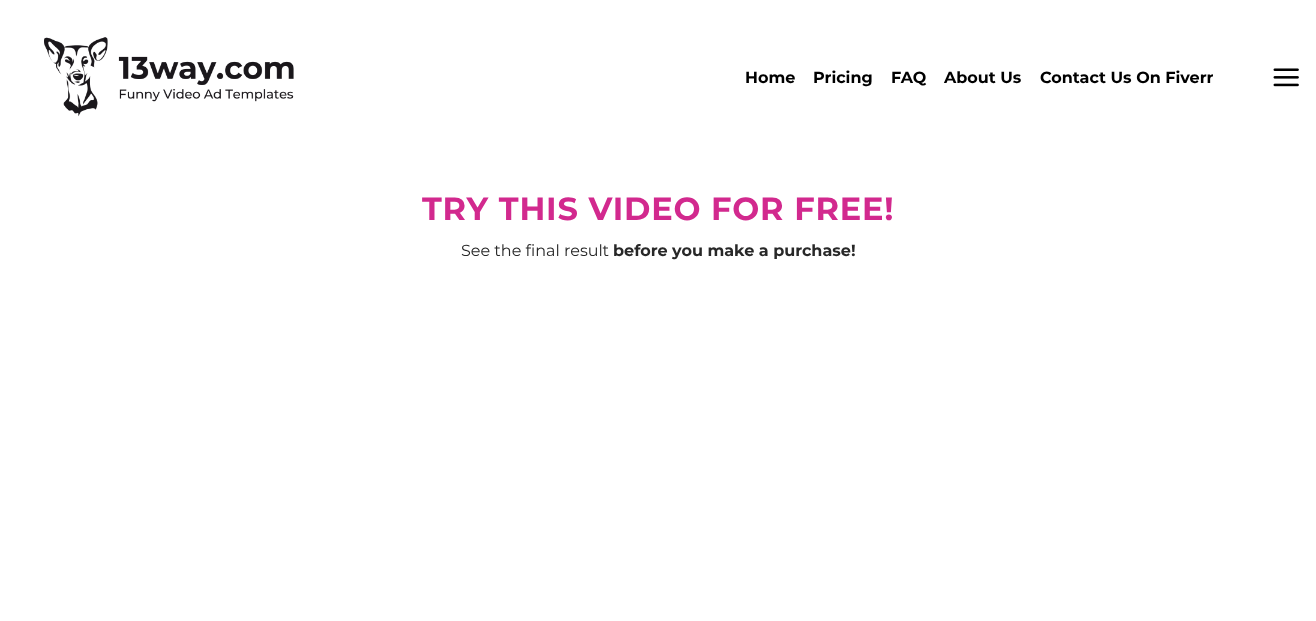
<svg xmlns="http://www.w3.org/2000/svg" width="1316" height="621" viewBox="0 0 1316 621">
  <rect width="100%" height="100%" fill="#fff"/>
  <image x="44" y="37" width="250" height="80" href="img/1.png"/>
  <image x="1273" y="68" width="26" height="19" href="img/2.png"/>
  <g font-family="Montserrat" font-size="16" font-weight="bold" fill="#000">
    <text x="745" y="83">Home</text>
    <text x="813" y="83">Pricing</text>
    <text x="891" y="83">FAQ</text>
    <text x="944" y="83">About Us</text>
    <text x="1040" y="83">Contact Us On Fiverr</text>
  </g>
  <text x="422" y="220" font-family="Montserrat" font-size="32" font-weight="bold" letter-spacing="0.8" fill="#d2298e">TRY THIS VIDEO FOR FREE!</text>
  <text x="461" y="256" font-family="Montserrat" font-size="16" fill="#282828">See the final result</text>
  <text x="613" y="256" font-family="Montserrat" font-size="16" font-weight="bold" fill="#282828">before you make a purchase!</text>
</svg>
